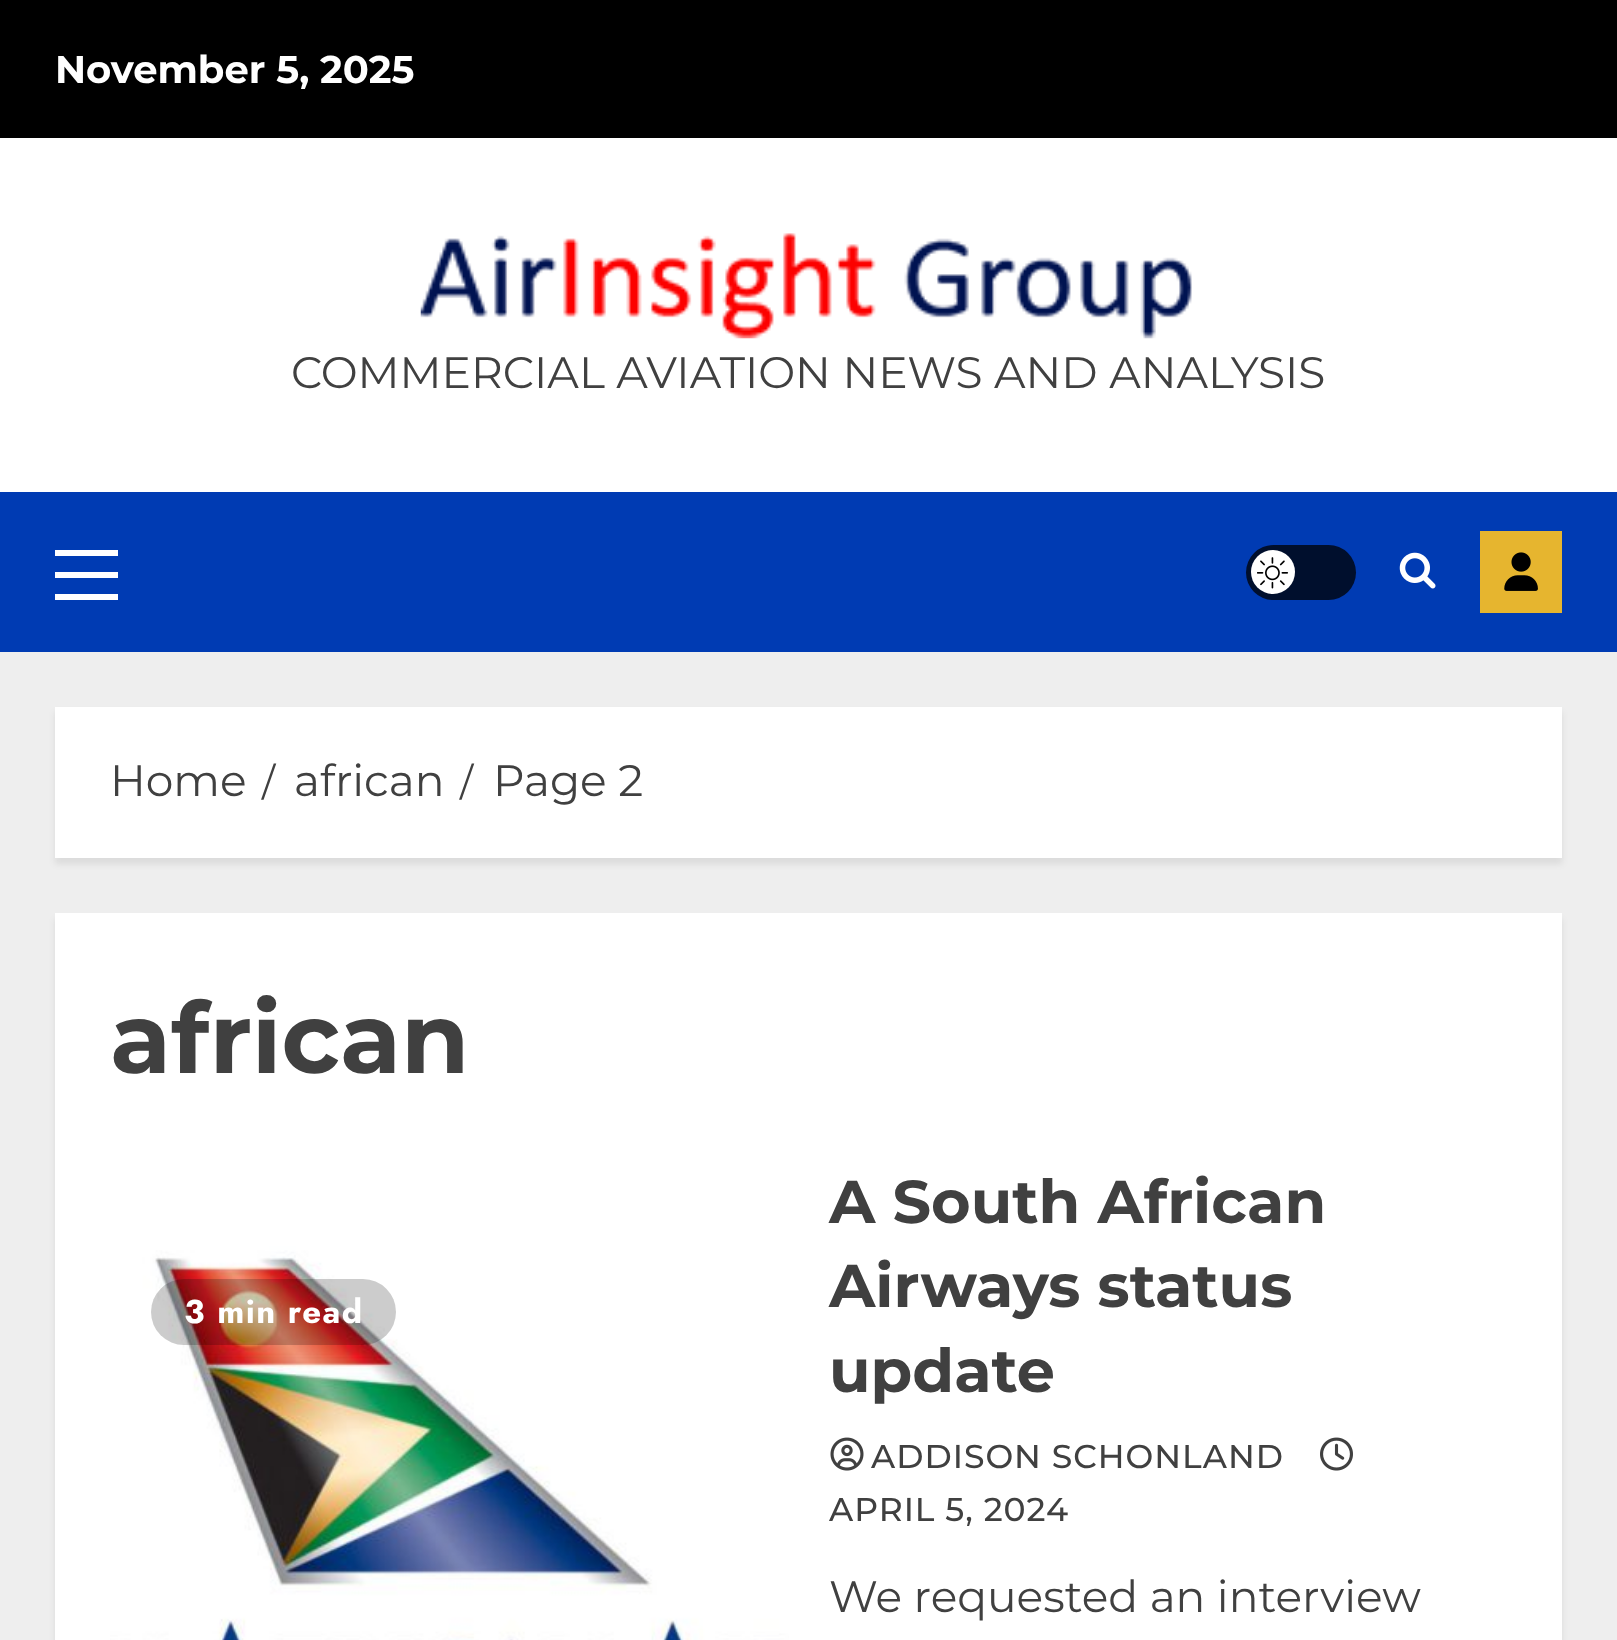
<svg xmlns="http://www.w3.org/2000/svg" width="1617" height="1640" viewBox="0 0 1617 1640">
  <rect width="100%" height="100%" fill="#eee"/>
  <path d="M0 0h1617v138H0z" fill="#000"/>
  <path d="M0 138h1617v354H0z" fill="#fff"/>
  <image x="420" y="233" width="772" height="106" href="img/1.png"/>
  <path d="M0 492h1617v160H0z" fill="#003bb3"/>
  <path d="M55 572h63v6H55z" fill="#fff"/>
  <path d="M55 550h63v6H55z" fill="#fff"/>
  <path d="M55 594h63v6H55z" fill="#fff"/>
  <rect x="1246" y="545" width="110" height="55" rx="27.5" fill="#000f2d"/>
  <circle cx="1273" cy="572" r="22" fill="#fff"/>
  <image x="1257" y="557" width="32" height="32" href="img/2.png"/>
  <image x="1399" y="552" width="37" height="37" href="img/3.png"/>
  <path d="M1480 531h82v82H1480z" fill="#e6b52f"/>
  <image x="1504" y="552" width="34" height="39" href="img/4.png"/>
  <path d="M55 712h1507v152H55z" fill="#00000014" filter="blur(3px)"/>
  <path d="M55 707h1507v151H55z" fill="#fff"/>
  <path d="M55 919h1507v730H55z" fill="#00000014" filter="blur(3px)"/>
  <path d="M55 913h1507v727H55z" fill="#fff"/>
  <image x="110" y="1238" width="679" height="402" href="img/5.png"/>
  <rect x="151" y="1279" width="245" height="66" rx="33" fill="#00000033"/>
  <image x="830" y="1437" width="34" height="34" href="img/6.png"/>
  <image x="1320" y="1437" width="33" height="34" href="img/7.png"/>
  <text x="55" y="83" font-family="'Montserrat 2'" font-size="38.5" font-weight="100" fill="#fff">November 5, 2025</text>
  <g font-family="Montserrat" font-size="44" font-weight="100" fill="#404040">
    <text x="291" y="388">COMMERCIAL AVIATION NEWS AND ANALYSIS</text>
    <text x="110" y="796">Home</text>
  </g>
  <text x="262" y="796" font-family="Montserrat" font-size="38.5" font-weight="100" fill="#404040">/</text>
  <text x="294" y="796" font-family="Montserrat" font-size="44" font-weight="100" fill="#404040">african</text>
  <text x="460" y="796" font-family="Montserrat" font-size="38.5" font-weight="100" fill="#404040">/</text>
  <text x="493" y="796" font-family="Montserrat" font-size="44" font-weight="100" fill="#404040">Page 2</text>
  <text x="110" y="1073" font-family="'Montserrat 2'" font-size="99" font-weight="100" fill="#404040">african</text>
  <text x="184" y="1323" font-family="Jost" font-size="33" font-weight="bold" letter-spacing="1.4" fill="#fff">3 min read</text>
  <g font-family="'Montserrat 2'" font-size="60.5" font-weight="100" fill="#404040">
    <text x="829" y="1223">A South African</text>
    <text x="829" y="1307">Airways status</text>
    <text x="829" y="1392">update</text>
  </g>
  <g font-family="'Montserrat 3'" font-size="33" font-weight="100" letter-spacing="1" fill="#404040">
    <text x="871" y="1468">ADDISON SCHONLAND</text>
    <text x="829" y="1521">APRIL 5, 2024</text>
  </g>
  <text x="829" y="1612" font-family="Montserrat" font-size="44" font-weight="100" fill="#404040">We requested an interview</text>
</svg>
